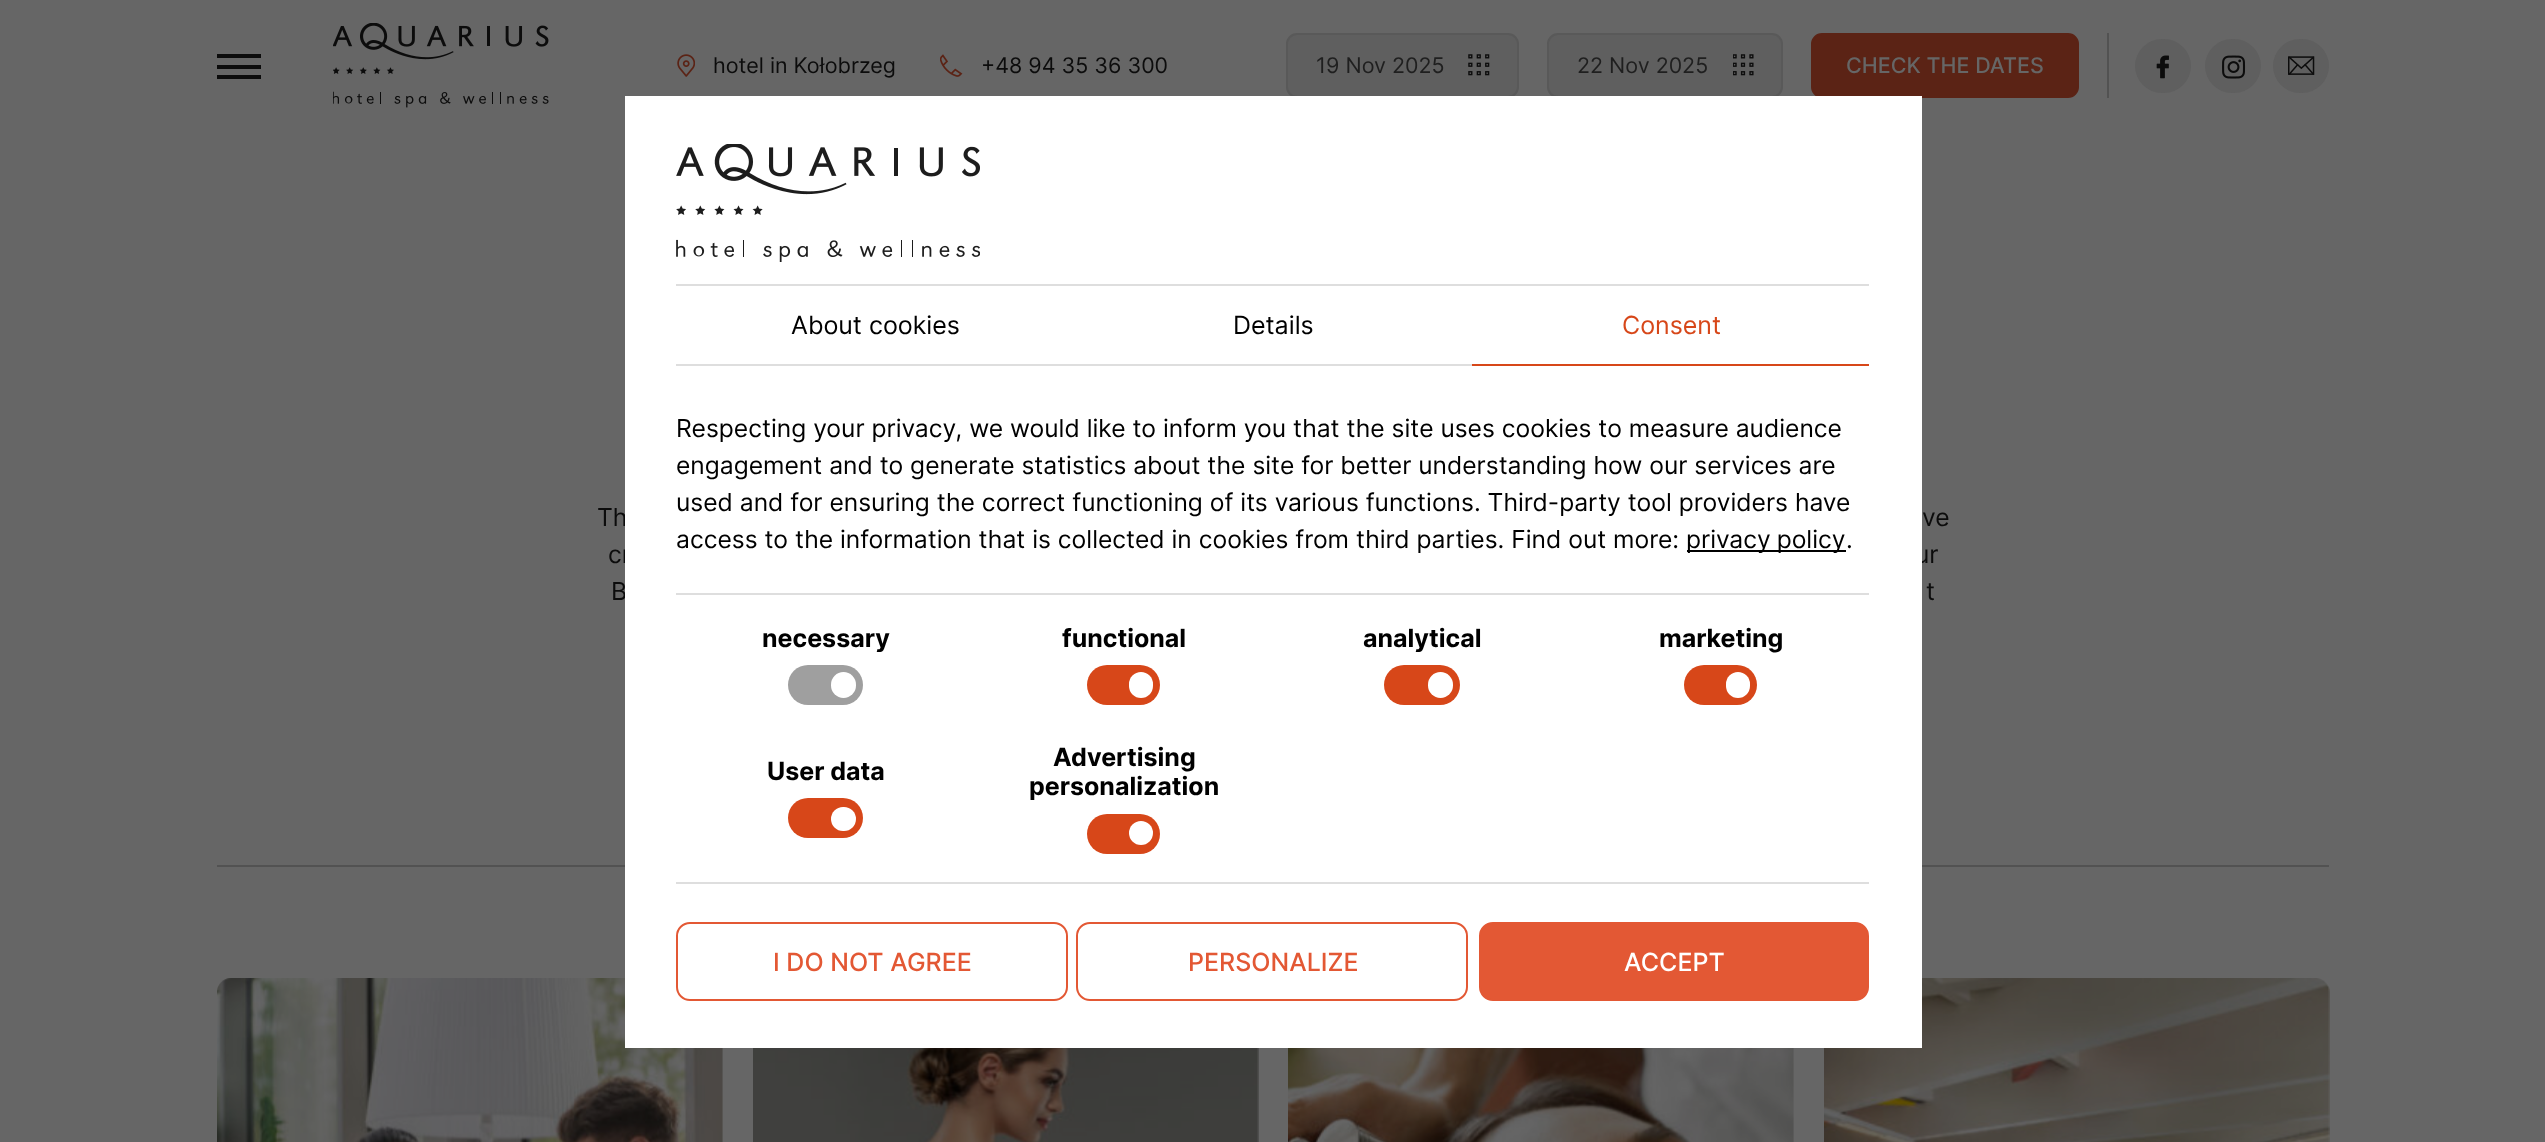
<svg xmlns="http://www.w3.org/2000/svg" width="2545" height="1142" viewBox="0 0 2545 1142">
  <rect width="100%" height="100%" fill="#666"/>
  <path d="M217 65h44v4H217z" fill="#0c0c0c"/>
  <path d="M217 54h44v4H217z" fill="#0c0c0c"/>
  <path d="M217 75h44v4H217z" fill="#0c0c0c"/>
  <image x="333" y="23" width="216" height="85" href="img/1.png"/>
  <image x="677" y="54" width="18" height="23" href="img/2.png"/>
  <image x="940" y="54" width="23" height="23" href="img/3.png"/>
  <rect x="1287" y="34" width="231" height="63" rx="10" fill="#5f5f5f" stroke="#595959" stroke-width="2"/>
  <image x="1468" y="54" width="22" height="22" href="img/4.png"/>
  <rect x="1548" y="34" width="234" height="63" rx="10" fill="#5f5f5f" stroke="#595959" stroke-width="2"/>
  <image x="1733" y="54" width="21" height="22" href="img/5.png"/>
  <rect x="1812" y="34" width="266" height="63" rx="10" fill="#5b2315" stroke="#5b2315" stroke-width="2"/>
  <path d="M2107 33h2v65H2107z" fill="#525252"/>
  <rect x="2135" y="39" width="56" height="54" rx="27" fill="#5f5f5f"/>
  <image x="2156" y="55" width="13" height="24" href="img/6.png"/>
  <rect x="2205" y="39" width="56" height="54" rx="27" fill="#5f5f5f"/>
  <image x="2222" y="55" width="24" height="24" href="img/7.png"/>
  <rect x="2273" y="39" width="56" height="54" rx="27" fill="#5f5f5f"/>
  <image x="2288" y="56" width="27" height="19" href="img/8.png"/>
  <path d="M217 865h2112v2H217z" fill="#525252"/>
  <image x="217" y="978" width="506" height="164" href="img/10.png"/>
  <image x="753" y="1048" width="506" height="94" href="img/11.png"/>
  <image x="1288" y="1048" width="506" height="94" href="img/12.png"/>
  <image x="1824" y="978" width="506" height="164" href="img/13.png"/>
  <g font-family="Inter" font-size="21.5" fill="#0c0c0c">
    <text x="713" y="73">hotel in Kołobrzeg</text>
    <text x="981" y="73">+48 94 35 36 300</text>
  </g>
  <g font-family="Inter" font-size="21.5" fill="#1f1f1f">
    <text x="1316" y="73">19 Nov 2025</text>
    <text x="1577" y="73">22 Nov 2025</text>
  </g>
  <text x="1846" y="73" font-family="Inter" font-size="21.5" font-weight="500" fill="#666">CHECK THE DATES</text>
  <g font-family="Inter" font-size="24.65" fill="#0c0c0c">
    <text x="597" y="526">Th</text>
    <text x="1922" y="526">ve</text>
    <text x="608" y="563">cr</text>
    <text x="1915" y="563">ur</text>
    <text x="611" y="600">B</text>
  </g>
  <path d="M625 96h1297v952H625z" fill="#fff"/>
  <rect x="1087" y="814" width="73" height="40" rx="20" fill="#d74719"/>
  <circle cx="1141" cy="833" r="12" fill="#fff"/>
  <rect x="788" y="798" width="75" height="40" rx="20" fill="#d74719"/>
  <rect x="831" y="807" width="25" height="24" rx="12" fill="#fff"/>
  <rect x="1684" y="665" width="73" height="40" rx="20" fill="#d74719"/>
  <rect x="1726" y="672" width="24" height="26" rx="12" fill="#fff"/>
  <rect x="1384" y="665" width="76" height="40" rx="20" fill="#d74719"/>
  <rect x="1428" y="672" width="25" height="26" rx="12.5" fill="#fff"/>
  <rect x="1087" y="665" width="73" height="40" rx="20" fill="#d74719"/>
  <rect x="1129" y="672" width="24" height="26" rx="12" fill="#fff"/>
  <rect x="788" y="665" width="75" height="40" rx="20" fill="#9f9f9f"/>
  <rect x="831" y="672" width="25" height="26" rx="12.5" fill="#fff"/>
  <g font-family="Inter" font-size="25" font-weight="bold" fill="#000">
    <text x="1029" y="795">personalization</text>
    <text x="1053" y="766">Advertising</text>
    <text x="767" y="780">User data</text>
    <text x="1659" y="647">marketing</text>
    <text x="1363" y="647">analytical</text>
    <text x="1062" y="647">functional</text>
    <text x="762" y="647">necessary</text>
  </g>
  <path d="M676 882h1193v2H676z" fill="#dedede"/>
  <path d="M676 593h1193v2H676z" fill="#dedede"/>
  <text x="1846" y="548" font-family="Inter" font-size="24.65" fill="#000">.</text>
  <path d="M1687 550h159v2H1687z" fill="#000"/>
  <g font-family="Inter" font-size="24.65" fill="#000">
    <text x="1686" y="548" word-spacing="-1">privacy policy</text>
    <text x="676" y="548">access to the information that is collected in cookies from third parties. Find out more:</text>
    <text x="676" y="511">used and for ensuring the correct functioning of its various functions. Third-party tool providers have</text>
    <text x="676" y="474">engagement and to generate statistics about the site for better understanding how our services are</text>
    <text x="676" y="437">Respecting your privacy, we would like to inform you that the site uses cookies to measure audience</text>
  </g>
  <text x="1622" y="334" font-family="Inter" font-size="25" fill="#d74719">Consent</text>
  <path d="M1472 364h397v2H1472z" fill="#d74719"/>
  <g font-family="Inter" font-size="25" fill="#000">
    <text x="1233" y="334">Details</text>
    <text x="791" y="334">About cookies</text>
  </g>
  <path d="M676 364h796v2H676z" fill="#dedede"/>
  <path d="M676 284h1193v2H676z" fill="#dedede"/>
  <rect x="1480" y="923" width="388" height="77" rx="13" fill="#e35834" stroke="#e35834" stroke-width="2"/>
  <text x="1624" y="971" font-family="Inter" font-size="25" font-weight="500" fill="#fff">ACCEPT</text>
  <rect x="1077" y="923" width="390" height="77" rx="13" fill="none" stroke="#e35834" stroke-width="2"/>
  <text x="1188" y="971" font-family="Inter" font-size="25" font-weight="500" fill="#e35834">PERSONALIZE</text>
  <rect x="677" y="923" width="390" height="77" rx="13" fill="none" stroke="#e35834" stroke-width="2"/>
  <text x="773" y="971" font-family="Inter" font-size="25" font-weight="500" fill="#e35834">I DO NOT AGREE</text>
  <image x="676" y="144" width="304" height="118" href="img/9.png"/>
  <text x="1926" y="600" font-family="Inter" font-size="24.65" fill="#0c0c0c">t</text>
</svg>
